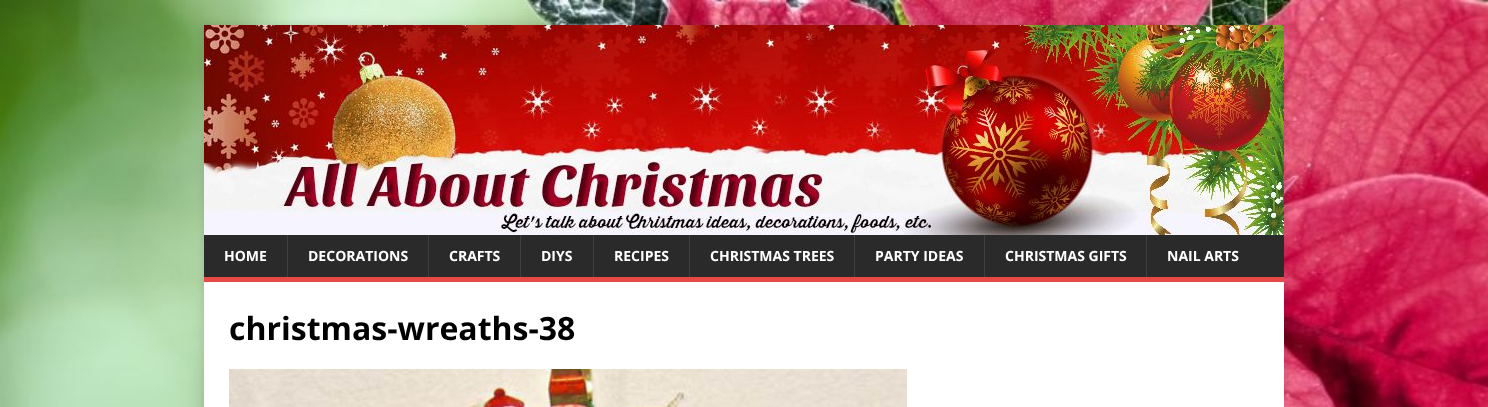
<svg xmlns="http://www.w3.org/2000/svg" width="1488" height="407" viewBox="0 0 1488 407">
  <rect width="100%" height="100%" fill="#fff"/>
  <image x="0" y="0" width="1488" height="407" href="img/1.png"/>
  <path d="M204 25h1080v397H204z" fill="#3232322b" filter="blur(5px)"/>
  <image x="204" y="25" width="1080" height="210" href="img/2.png"/>
  <path d="M204 235h1080v42H204z" fill="#2a2a2a"/>
  <path d="M204 277h1080v5H204z" fill="#e64946"/>
  <path d="M287 235h1v42H287z" fill="#3f3f3f"/>
  <path d="M428 235h1v42H428z" fill="#3f3f3f"/>
  <path d="M520 235h1v42H520z" fill="#3f3f3f"/>
  <path d="M593 235h1v42H593z" fill="#3f3f3f"/>
  <path d="M689 235h1v42H689z" fill="#3f3f3f"/>
  <path d="M854 235h1v42H854z" fill="#3f3f3f"/>
  <path d="M984 235h1v42H984z" fill="#3f3f3f"/>
  <path d="M1146 235h1v42H1146z" fill="#3f3f3f"/>
  <path d="M204 282h1080v125H204z" fill="#fff"/>
  <image x="229" y="369" width="678" height="38" href="img/3.png"/>
  <g font-family="Open Sans" font-size="14" font-weight="bold" fill="#fff">
    <text x="224" y="261">HOME</text>
    <text x="308" y="261">DECORATIONS</text>
    <text x="449" y="261">CRAFTS</text>
    <text x="541" y="261">DIYS</text>
    <text x="614" y="261">RECIPES</text>
    <text x="710" y="261">CHRISTMAS TREES</text>
    <text x="875" y="261">PARTY IDEAS</text>
    <text x="1005" y="261">CHRISTMAS GIFTS</text>
    <text x="1167" y="261">NAIL ARTS</text>
  </g>
  <text x="229" y="340" font-family="Open Sans" font-size="32" font-weight="bold" fill="#000">christmas-wreaths-38</text>
</svg>
